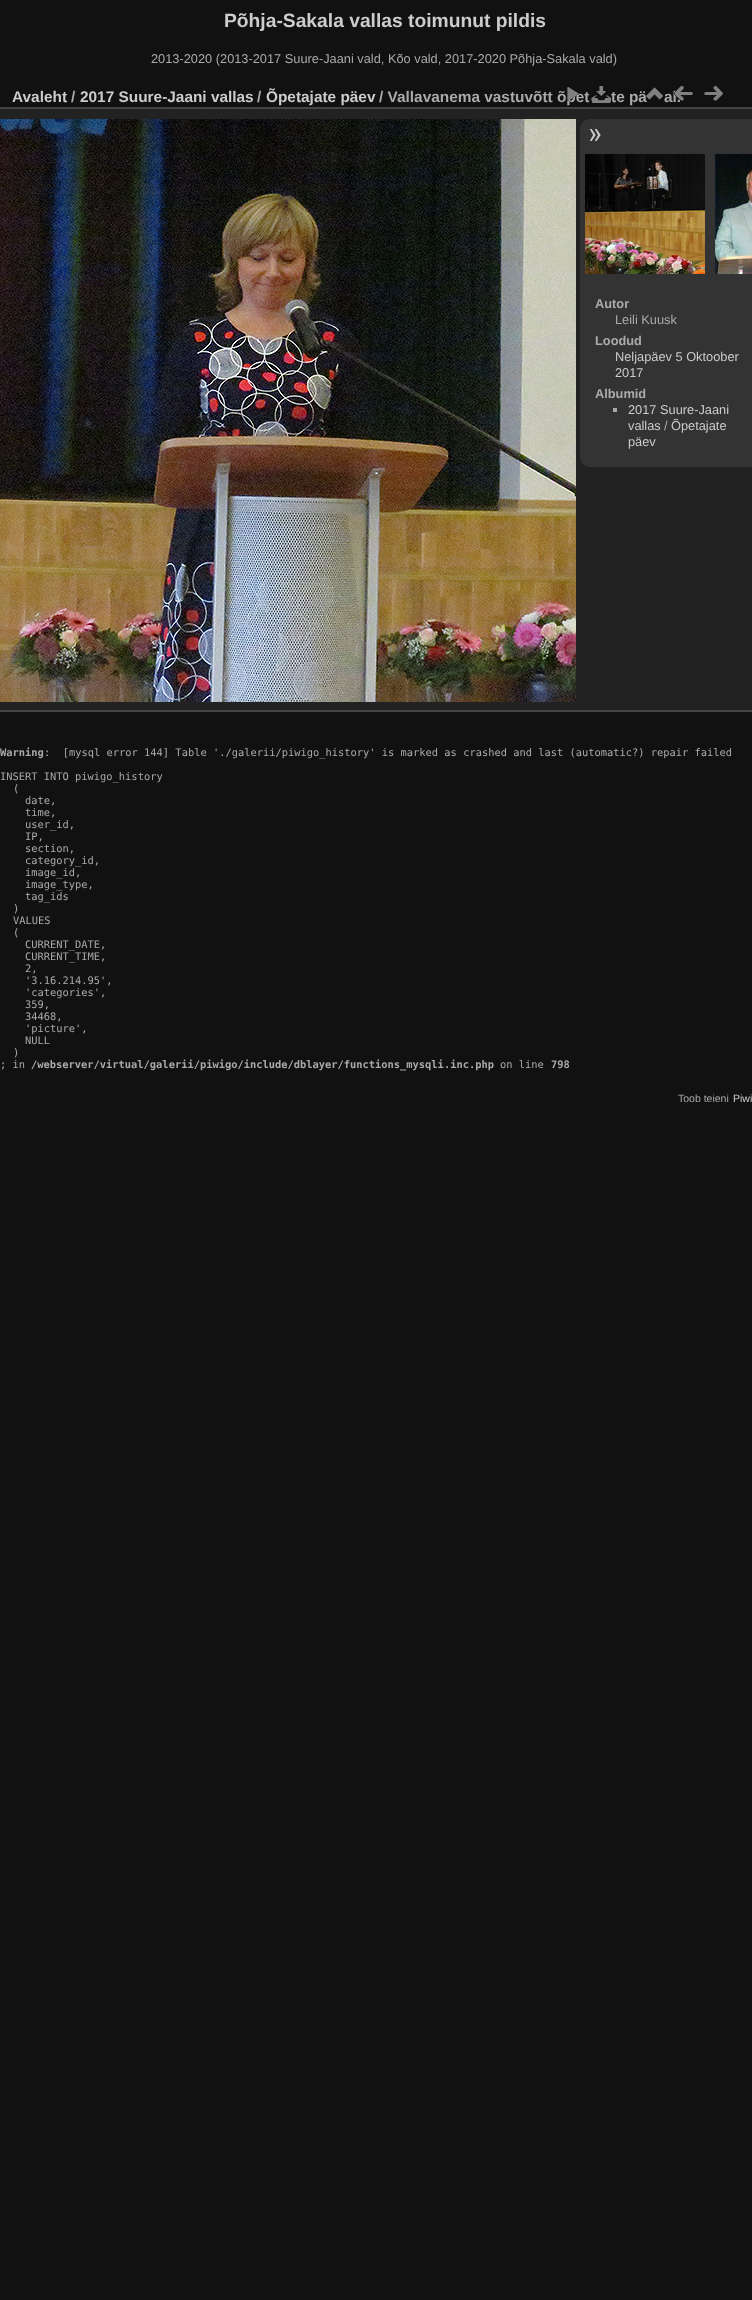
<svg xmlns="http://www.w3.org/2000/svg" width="752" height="2300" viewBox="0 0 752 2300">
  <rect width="100%" height="100%" fill="#111"/>
  <path d="M0 109h752v601H0z" fill="#222"/>
  <path d="M0 710h752v2H0z" fill="#444"/>
  <image x="704" y="86" width="19" height="15" href="img/5.png"/>
  <path d="M0 107h752v2H0z" fill="#444"/>
  <image x="0" y="119" width="576" height="583" href="img/6.png"/>
  <path d="M590 119H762V467H590C584.5 467 580 462.5 580 457V129C580 123.5 584.5 119 590 119Z" fill="#333"/>
  <image x="589" y="129" width="12" height="12" href="img/7.png"/>
  <image x="585" y="154" width="120" height="120" href="img/8.png"/>
  <image x="715" y="154" width="37" height="120" href="img/9.png"/>
  <path d="M613 408h4v4H613z" fill="#aaa"/>
  <text x="224" y="27" font-family="Liberation Sans" font-size="19.25" font-weight="bold" fill="#ccc">Põhja-Sakala vallas toimunut pildis</text>
  <text x="151" y="63" font-family="Liberation Sans" font-size="12.8" fill="#aaa">2013-2020 (2013-2017 Suure-Jaani vald, Kõo vald, 2017-2020 Põhja-Sakala vald)</text>
  <text x="12" y="102" font-family="Liberation Sans" font-size="15.4" font-weight="bold" fill="#ccc">Avaleht</text>
  <text x="71" y="102" font-family="Liberation Sans" font-size="15.4" font-weight="bold" fill="#aaa">/</text>
  <text x="80" y="102" font-family="Liberation Sans" font-size="15.4" font-weight="bold" fill="#ccc">2017 Suure-Jaani vallas</text>
  <text x="257" y="102" font-family="Liberation Sans" font-size="15.4" font-weight="bold" fill="#aaa">/</text>
  <text x="266" y="102" font-family="Liberation Sans" font-size="15.4" font-weight="bold" fill="#ccc">Õpetajate päev</text>
  <text x="379" y="102" font-family="Liberation Sans" font-size="15.4" font-weight="bold" fill="#aaa">/ Vallavanema vastuvõtt õpet</text>
  <image x="567" y="87" width="12" height="14" href="img/1.png"/>
  <text x="611" y="102" font-family="Liberation Sans" font-size="15.4" font-weight="bold" fill="#aaa">te pä</text>
  <image x="591" y="86" width="21" height="17" href="img/2.png"/>
  <image x="646" y="87" width="17" height="13" href="img/3.png"/>
  <text x="664" y="102" font-family="Liberation Sans" font-size="15.4" font-weight="bold" fill="#aaa">al.</text>
  <image x="674" y="86" width="19" height="15" href="img/4.png"/>
  <text x="595" y="308" font-family="Liberation Sans" font-size="12.8" font-weight="bold" fill="#aaa">Autor</text>
  <text x="615" y="324" font-family="Liberation Sans" font-size="12.8" fill="#aaa">Leili Kuusk</text>
  <text x="595" y="345" font-family="Liberation Sans" font-size="12.8" font-weight="bold" fill="#aaa">Loodud</text>
  <g font-family="Liberation Sans" font-size="12.8" fill="#ccc">
    <text x="615" y="361">Neljapäev 5 Oktoober</text>
    <text x="615" y="377">2017</text>
  </g>
  <text x="595" y="398" font-family="Liberation Sans" font-size="12.8" font-weight="bold" fill="#aaa">Albumid</text>
  <g font-family="Liberation Sans" font-size="12.8" fill="#ccc">
    <text x="628" y="414">2017 Suure-Jaani</text>
    <text x="628" y="430">vallas</text>
  </g>
  <text x="664" y="430" font-family="Liberation Sans" font-size="12.8" fill="#aaa">/</text>
  <g font-family="Liberation Sans" font-size="12.8" fill="#ccc">
    <text x="671" y="430">Õpetajate</text>
    <text x="628" y="446">päev</text>
  </g>
  <text x="0" y="756" font-family="DejaVu Sans Mono" font-size="10.4" font-weight="bold" fill="#aaa">Warning</text>
  <g font-family="DejaVu Sans Mono" font-size="10.4" fill="#aaa">
    <text x="44" y="756" xml:space="preserve">:  [mysql error 144] Table './galerii/piwigo_history' is marked as crashed and last (automatic?) repair failed</text>
    <text x="0" y="780">INSERT INTO piwigo_history</text>
    <text x="13" y="792">(</text>
    <text x="25" y="804">date,</text>
    <text x="25" y="816">time,</text>
    <text x="25" y="828">user_id,</text>
    <text x="25" y="840">IP,</text>
    <text x="25" y="852">section,</text>
    <text x="25" y="864">category_id,</text>
    <text x="25" y="876">image_id,</text>
    <text x="25" y="888">image_type,</text>
    <text x="25" y="900">tag_ids</text>
    <text x="13" y="912">)</text>
    <text x="13" y="924">VALUES</text>
    <text x="13" y="936">(</text>
    <text x="25" y="948">CURRENT_DATE,</text>
    <text x="25" y="960">CURRENT_TIME,</text>
    <text x="25" y="972">2,</text>
    <text x="25" y="984">'3.16.214.95',</text>
    <text x="25" y="996">'categories',</text>
    <text x="25" y="1008">359,</text>
    <text x="25" y="1020">34468,</text>
    <text x="25" y="1032">'picture',</text>
    <text x="25" y="1044">NULL</text>
    <text x="13" y="1056">)</text>
    <text x="0" y="1068">; in</text>
  </g>
  <text x="31" y="1068" font-family="DejaVu Sans Mono" font-size="10.4" font-weight="bold" fill="#aaa">/webserver/virtual/galerii/piwigo/include/dblayer/functions_mysqli.inc.php</text>
  <text x="500" y="1068" font-family="DejaVu Sans Mono" font-size="10.4" fill="#aaa">on line</text>
  <text x="551" y="1068" font-family="DejaVu Sans Mono" font-size="10.4" font-weight="bold" fill="#aaa">798</text>
  <text x="678" y="1102" font-family="Liberation Sans" font-size="10.5" fill="#aaa">Toob teieni</text>
  <text x="733" y="1102" font-family="Liberation Sans" font-size="10.5" fill="#ccc">Piwi</text>
</svg>
